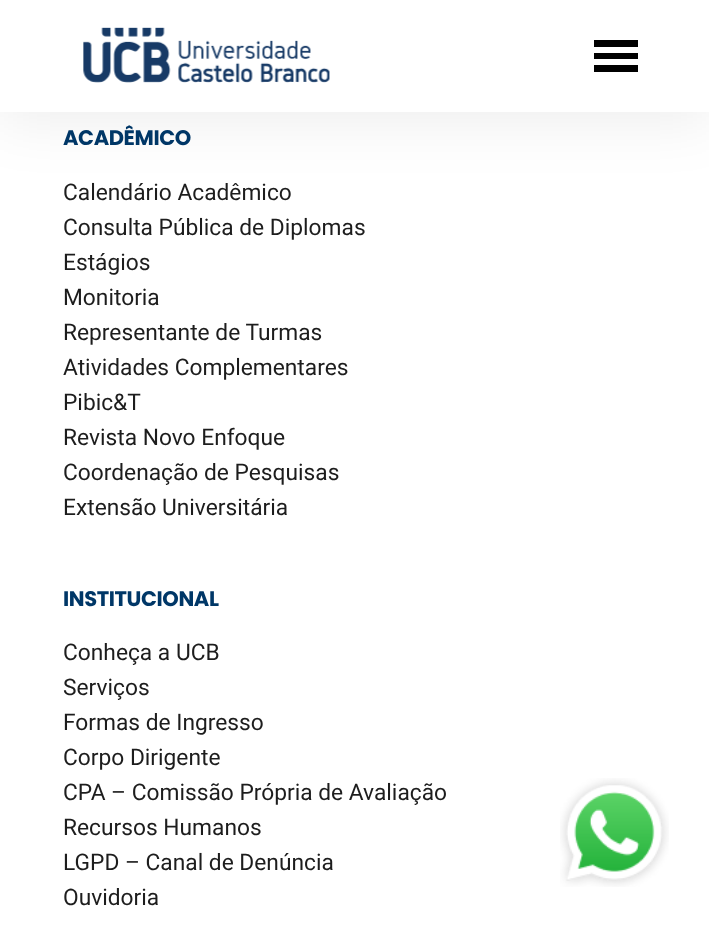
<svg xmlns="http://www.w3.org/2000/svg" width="709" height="928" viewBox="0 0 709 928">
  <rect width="100%" height="100%" fill="#fff"/>
  <path d="M-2 5h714v116H-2z" fill="#00000012" filter="blur(29px)"/>
  <path d="M0 0h709v112H0z" fill="#fff"/>
  <image x="83" y="27" width="247" height="56" href="img/1.png"/>
  <path d="M594 72H638V65H594ZM594 40V47H638V40ZM594 59H638V53H594Z" fill="#000"/>
  <image x="560" y="778" width="109" height="109" href="img/2.png"/>
  <text x="63" y="145" font-family="Poppins" font-size="21" font-weight="bold" letter-spacing="-0.4" fill="#003767">ACADÊMICO</text>
  <g font-family="Roboto" font-size="22.75" fill="#1d1d1d">
    <text x="63" y="200">Calendário Acadêmico</text>
    <text x="63" y="235">Consulta Pública de Diplomas</text>
    <text x="63" y="270">Estágios</text>
    <text x="63" y="305">Monitoria</text>
    <text x="63" y="340">Representante de Turmas</text>
    <text x="63" y="375">Atividades Complementares</text>
    <text x="63" y="410">Pibic&amp;T</text>
    <text x="63" y="445">Revista Novo Enfoque</text>
    <text x="63" y="480">Coordenação de Pesquisas</text>
    <text x="63" y="515">Extensão Universitária</text>
  </g>
  <text x="63" y="606" font-family="Poppins" font-size="21" font-weight="bold" letter-spacing="-0.4" fill="#003767">INSTITUCIONAL</text>
  <g font-family="Roboto" font-size="22.75" fill="#1d1d1d">
    <text x="63" y="660">Conheça a UCB</text>
    <text x="63" y="695">Serviços</text>
    <text x="63" y="730">Formas de Ingresso</text>
    <text x="63" y="765">Corpo Dirigente</text>
    <text x="63" y="800">CPA – Comissão Própria de Avaliação</text>
    <text x="63" y="835">Recursos Humanos</text>
    <text x="63" y="870">LGPD – Canal de Denúncia</text>
    <text x="63" y="905">Ouvidoria</text>
  </g>
</svg>
